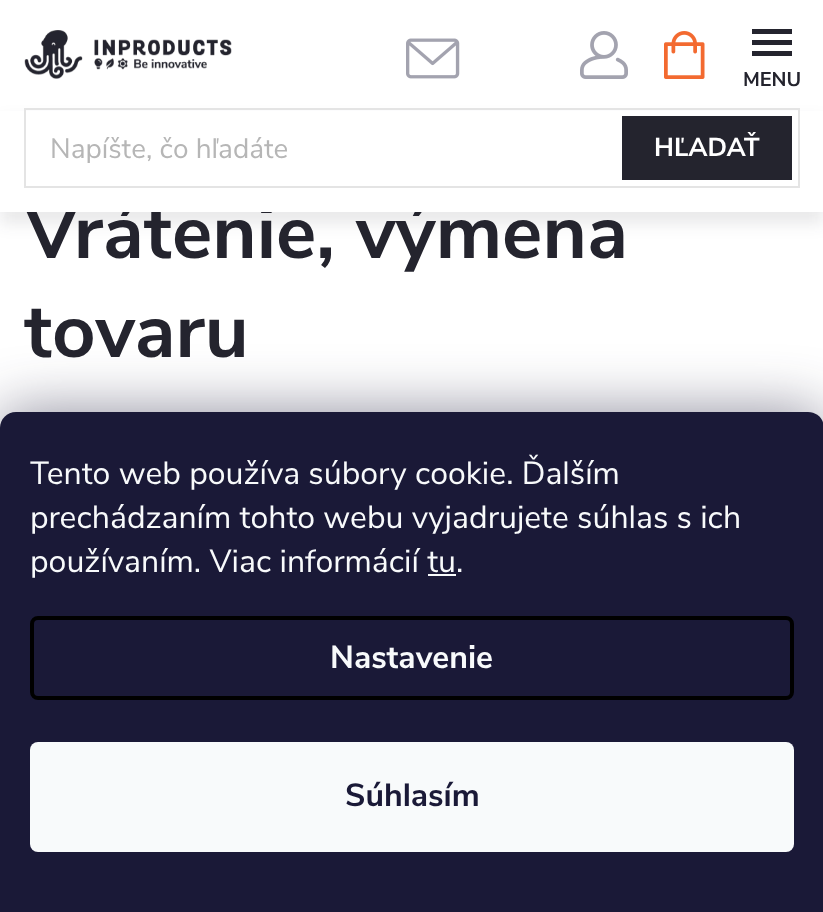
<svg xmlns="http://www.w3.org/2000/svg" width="823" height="912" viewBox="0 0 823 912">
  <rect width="100%" height="100%" fill="#fff"/>
  <image x="406" y="38" width="54" height="41" href="img/1.png"/>
  <image x="580" y="31" width="48" height="48" href="img/2.png"/>
  <path d="M752 56H792V51H752ZM752 45H792V40H752ZM752 29V34H792V29Z" fill="#24242e"/>
  <path d="M0 120h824v104H0z" fill="#24242e1a" filter="blur(8px)"/>
  <image x="24" y="30" width="208" height="49" href="img/3.png"/>
  <image x="664" y="31" width="41" height="48" href="img/4.png"/>
  <rect y="412" width="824" height="500" rx="16" fill="#1b193980" filter="blur(30px)"/>
  <path d="M16 412H808C817 412 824 419 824 428V912H0V428C0 419 7 412 16 412Z" fill="#1a1937"/>
  <path d="M428 574h28v2H428z" fill="#f8fafb"/>
  <rect x="32" y="618" width="760" height="80" rx="6" fill="none" stroke="#000" stroke-width="4"/>
  <rect x="30" y="742" width="764" height="110" rx="8" fill="#f8fafb"/>
  <text x="743" y="86" font-family="Nunito Sans" font-size="20" font-weight="bold" fill="#24242e">MENU</text>
  <text x="24" y="258" font-family="Nunito Sans" font-size="76" font-weight="bold" fill="#24242e">Vrátenie, výmena</text>
  <path d="M0 111h823v101H0z" fill="#fff"/>
  <path d="M25 109h774v78H25z" fill="none" stroke="#e4e4e4" stroke-width="2"/>
  <path d="M622 116h170v64H622z" fill="#24242e"/>
  <text x="654" y="156" font-family="Nunito Sans" font-size="26" font-weight="bold" fill="#fff">HĽADAŤ</text>
  <text x="50" y="158" font-family="Nunito Sans" font-size="28" fill="#b6b6b6">Napíšte, čo hľadáte</text>
  <text x="24" y="357" font-family="Nunito Sans" font-size="76" font-weight="bold" fill="#24242e">tovaru</text>
  <g font-family="Nunito Sans" font-size="32" fill="#f8fafb">
    <text x="30" y="484">Tento web používa súbory cookie. Ďalším</text>
    <text x="30" y="528">prechádzaním tohto webu vyjadrujete súhlas s ich</text>
    <text x="30" y="572">používaním. Viac informácií tu.</text>
  </g>
  <text x="330" y="668" font-family="Nunito Sans" font-size="32" font-weight="bold" fill="#f8fafb">Nastavenie</text>
  <text x="345" y="806" font-family="Nunito Sans" font-size="32" font-weight="bold" fill="#1a1937">Súhlasím</text>
</svg>
